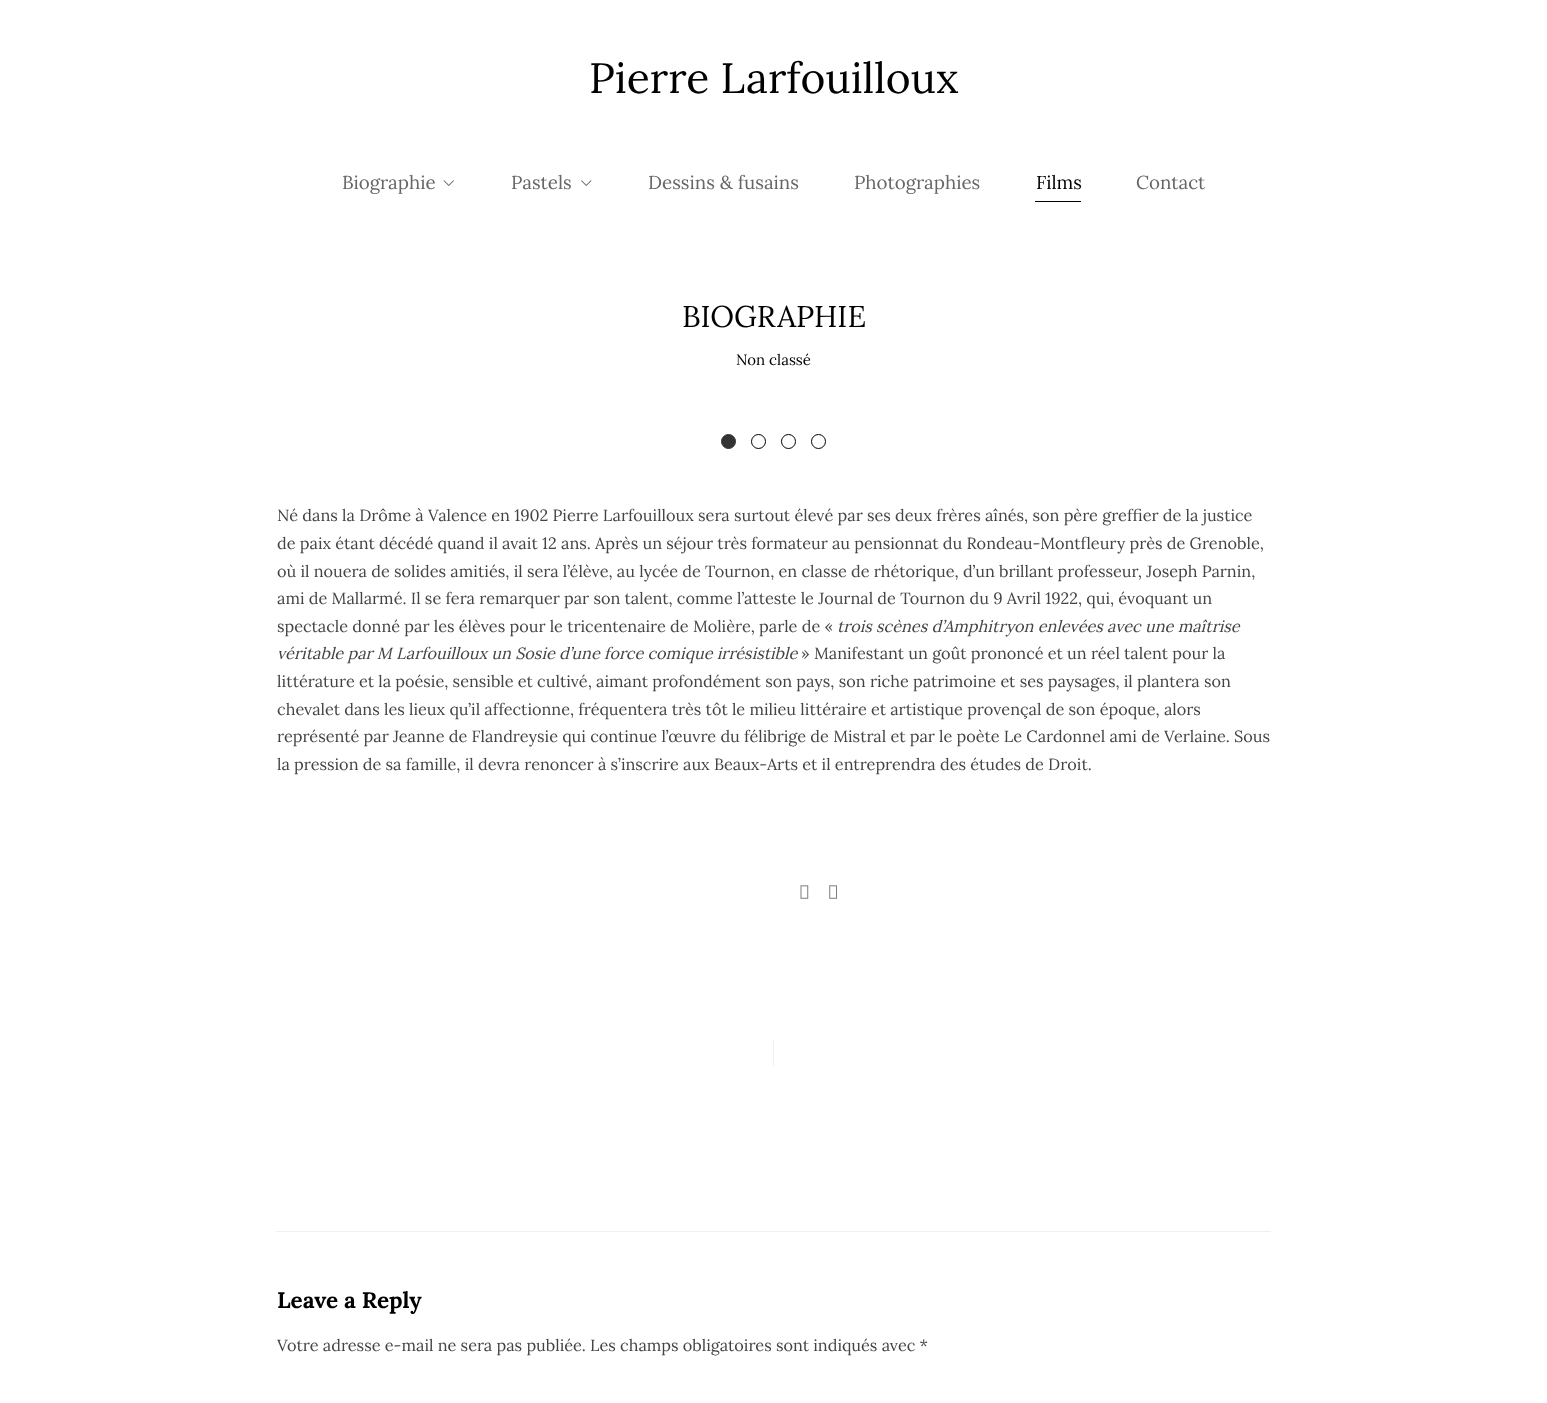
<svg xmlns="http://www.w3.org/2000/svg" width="1547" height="1403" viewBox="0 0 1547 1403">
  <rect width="100%" height="100%" fill="#fff"/>
  <image x="443" y="180" width="11" height="6" href="img/1.png"/>
  <image x="581" y="180" width="11" height="6" href="img/2.png"/>
  <path d="M1035 201h46v1H1035z" fill="#000"/>
  <circle cx="728.5" cy="441.5" r="7" fill="#333" stroke="#333"/>
  <circle cx="758.5" cy="441.5" r="7" fill="none" stroke="#000"/>
  <circle cx="788.5" cy="441.5" r="7" fill="none" stroke="#000"/>
  <circle cx="818.5" cy="441.5" r="7" fill="none" stroke="#000"/>
  <image x="800" y="885" width="9" height="14" href="img/3.png"/>
  <image x="829" y="885" width="8" height="14" href="img/4.png"/>
  <path d="M773 1039h1v27H773z" fill="#f0f0f0"/>
  <path d="M276 1231h995v1H276z" fill="#f0f0f0"/>
  <text x="589" y="93" font-family="Lora" font-size="42.5" fill="#000">Pierre Larfouilloux</text>
  <g font-family="Lora" font-size="18.75" fill="#666">
    <text x="342" y="189">Biographie</text>
    <text x="511" y="189">Pastels</text>
    <text x="648" y="189">Dessins &amp; fusains</text>
    <text x="854" y="189">Photographies</text>
  </g>
  <text x="1036" y="189" font-family="Lora" font-size="18.75" fill="#000">Films</text>
  <text x="1136" y="189" font-family="Lora" font-size="18.75" fill="#666">Contact</text>
  <text x="682" y="327" font-family="Lora" font-size="30" fill="#000">BIOGRAPHIE</text>
  <text x="736" y="365" font-family="Lora" font-size="15" fill="#000">Non classé</text>
  <g font-family="Lora" font-size="16.25" fill="#444">
    <text x="277" y="521">Né dans la Drôme à Valence en 1902 Pierre Larfouilloux sera surtout élevé par ses deux frères aînés, son père greffier de la justice</text>
    <text x="277" y="549">de paix étant décédé quand il avait 12 ans. Après un séjour très formateur au pensionnat du Rondeau-Montfleury près de Grenoble,</text>
    <text x="277" y="577">où il nouera de solides amitiés, il sera l’élève, au lycée de Tournon, en classe de rhétorique, d’un brillant professeur, Joseph Parnin,</text>
    <text x="277" y="604">ami de Mallarmé. Il se fera remarquer par son talent, comme l’atteste le Journal de Tournon du 9 Avril 1922, qui, évoquant un</text>
    <text x="277" y="632">spectacle donné par les élèves pour le tricentenaire de Molière, parle de «</text>
  </g>
  <g font-family="Lora" font-size="16.25" font-style="italic" fill="#444">
    <text x="837" y="632">trois scènes d’Amphitryon enlevées avec une maîtrise</text>
    <text x="277" y="659">véritable par M Larfouilloux un Sosie d’une force comique irrésistible</text>
  </g>
  <g font-family="Lora" font-size="16.25" fill="#444">
    <text x="801" y="659">» Manifestant un goût prononcé et un réel talent pour la</text>
    <text x="277" y="687">littérature et la poésie, sensible et cultivé, aimant profondément son pays, son riche patrimoine et ses paysages, il plantera son</text>
    <text x="277" y="715">chevalet dans les lieux qu’il affectionne, fréquentera très tôt le milieu littéraire et artistique provençal de son époque, alors</text>
    <text x="277" y="742">représenté par Jeanne de Flandreysie qui continue l’œuvre du félibrige de Mistral et par le poète Le Cardonnel ami de Verlaine. Sous</text>
    <text x="277" y="770">la pression de sa famille, il devra renoncer à s’inscrire aux Beaux-Arts et il entreprendra des études de Droit.</text>
  </g>
  <text x="277" y="1308" font-family="Lora" font-size="22.5" font-weight="bold" fill="#000">Leave a Reply</text>
  <text x="277" y="1351" font-family="Lora" font-size="16.25" fill="#444">Votre adresse e-mail ne sera pas publiée. Les champs obligatoires sont indiqués avec *</text>
</svg>
